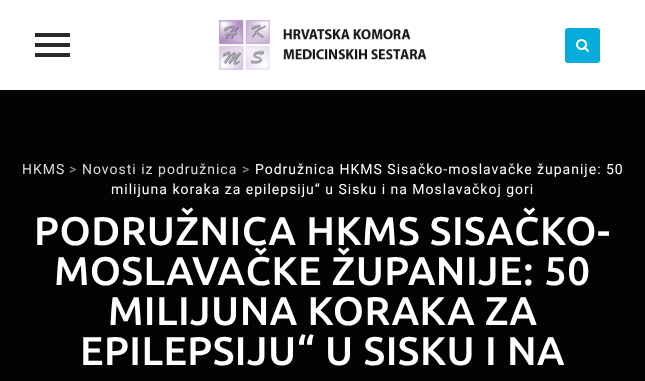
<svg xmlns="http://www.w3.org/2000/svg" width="645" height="381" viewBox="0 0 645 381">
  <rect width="100%" height="100%" fill="#fff"/>
  <image x="219" y="20" width="208" height="50" href="img/1.png"/>
  <path d="M35 43h35v4H35z" fill="#2a2a2a"/>
  <path d="M35 33h35v4H35z" fill="#2a2a2a"/>
  <path d="M35 53h35v4H35z" fill="#2a2a2a"/>
  <rect x="565" y="28" width="35" height="35" rx="3" fill="#06addc"/>
  <image x="576" y="39" width="13" height="13" href="img/2.png"/>
  <path d="M0 90h645v291H0z" fill="#030303"/>
  <text x="22" y="174" font-family="Roboto" font-size="14" letter-spacing="1" fill="#dbdbdb">HKMS</text>
  <text x="69" y="174" font-family="Roboto" font-size="14" letter-spacing="1" fill="#9a9a9a">&gt;</text>
  <text x="82" y="174" font-family="Roboto" font-size="14" letter-spacing="1" fill="#dbdbdb">Novosti iz podružnica</text>
  <text x="242" y="174" font-family="Roboto" font-size="14" letter-spacing="1" fill="#9a9a9a">&gt;</text>
  <g font-family="Roboto" font-size="14" letter-spacing="1" fill="#fff">
    <text x="255" y="174">Podružnica HKMS Sisačko-moslavačke županije: 50</text>
    <text x="111" y="194">milijuna koraka za epilepsiju“ u Sisku i na Moslavačkoj gori</text>
  </g>
  <g font-family="Ubuntu" font-size="40" font-weight="500" letter-spacing="0.5" fill="#fff">
    <text x="34" y="245">PODRUŽNICA HKMS SISAČKO-</text>
    <text x="54" y="285">MOSLAVAČKE ŽUPANIJE: 50</text>
    <text x="108" y="325">MILIJUNA KORAKA ZA</text>
    <text x="80" y="365">EPILEPSIJU“ U SISKU I NA</text>
  </g>
</svg>
